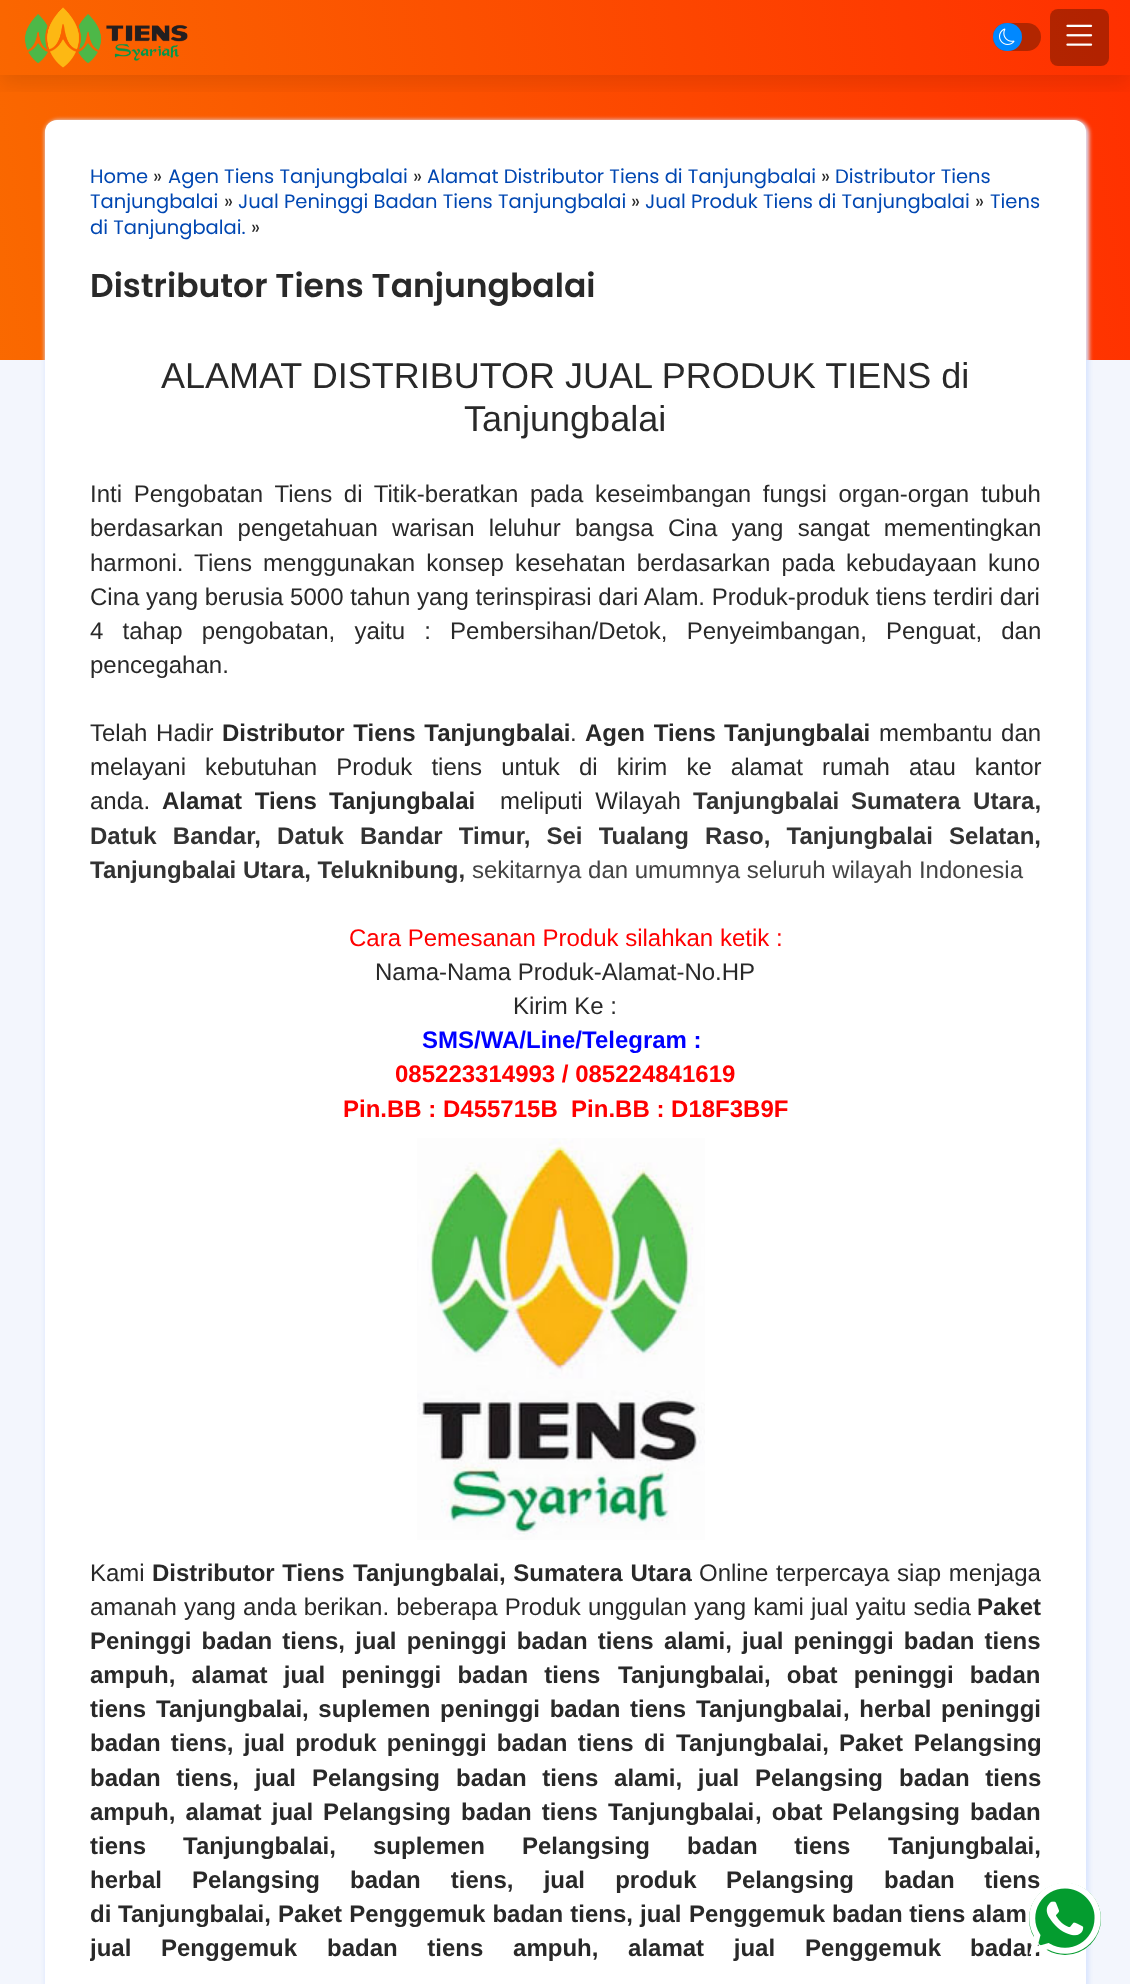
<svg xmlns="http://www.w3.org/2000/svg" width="1130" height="1984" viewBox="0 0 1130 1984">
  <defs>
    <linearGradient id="g1" gradientUnits="userSpaceOnUse" x1="-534" y1="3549" x2="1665" y2="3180"><stop offset="0" stop-color="#f59c00"/><stop offset="1" stop-color="#ff3000"/></linearGradient>
    <clipPath id="clip1"><path d="M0 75h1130v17H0z"/></clipPath>
    <clipPath id="clip2"><rect x="90" y="264" width="951" height="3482" rx="12"/></clipPath>
  </defs>
  <rect width="100%" height="100%" fill="#fff"/>
  <path d="M0 0h1130v360H0z" fill="url(#g1)"/>
  <g clip-path="url(#clip1)">
    <path d="M0 8h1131v75H0z" fill="#0000001a" filter="blur(11px)"/>
  </g>
  <rect x="993" y="23" width="48" height="28" rx="14" fill="#b22600"/>
  <rect x="993" y="23" width="29" height="28" rx="14" fill="#08f"/>
  <image x="999" y="28" width="16" height="17" href="img/1.png"/>
  <path d="M0 360h1130v1624H0z" fill="#f3f6fd"/>
  <image x="24" y="7" width="164" height="61" href="img/2.png"/>
  <rect x="1050" y="9" width="59" height="57" rx="8" fill="#0000004d"/>
  <image x="1066" y="24" width="27" height="22" href="img/3.png"/>
  <rect x="45" y="120" width="1044" height="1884" rx="14" fill="#dae5fe" filter="blur(2px)"/>
  <rect x="45" y="120" width="1041" height="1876" rx="12" fill="#fff"/>
  <image x="417" y="1138" width="288" height="402" href="img/4.png"/>
  <text x="90" y="183" font-family="Poppins" font-size="19.5" fill="#0047b2">Home</text>
  <text x="153" y="183" font-family="Poppins" font-size="19.5" fill="#292929">»</text>
  <text x="168" y="183" font-family="Poppins" font-size="19.5" fill="#0047b2">Agen Tiens Tanjungbalai</text>
  <text x="413" y="183" font-family="Poppins" font-size="19.5" fill="#292929">»</text>
  <text x="427" y="183" font-family="Poppins" font-size="19.5" fill="#0047b2">Alamat Distributor Tiens di Tanjungbalai</text>
  <text x="821" y="183" font-family="Poppins" font-size="19.5" fill="#292929">»</text>
  <g font-family="Poppins" font-size="19.5" fill="#0047b2">
    <text x="835" y="183">Distributor Tiens</text>
    <text x="90" y="208">Tanjungbalai</text>
  </g>
  <text x="224" y="208" font-family="Poppins" font-size="19.5" fill="#292929">»</text>
  <text x="238" y="208" font-family="Poppins" font-size="19.5" fill="#0047b2">Jual Peninggi Badan Tiens Tanjungbalai</text>
  <text x="631" y="208" font-family="Poppins" font-size="19.5" fill="#292929">»</text>
  <text x="645" y="208" font-family="Poppins" font-size="19.5" fill="#0047b2">Jual Produk Tiens di Tanjungbalai</text>
  <text x="975" y="208" font-family="Poppins" font-size="19.5" fill="#292929">»</text>
  <g font-family="Poppins" font-size="19.5" fill="#0047b2">
    <text x="990" y="208">Tiens</text>
    <text x="90" y="234">di Tanjungbalai.</text>
  </g>
  <text x="251" y="234" font-family="Poppins" font-size="19.5" fill="#292929">»</text>
  <text x="90" y="297" font-family="Poppins" font-size="33" font-weight="600" fill="#292929">Distributor Tiens Tanjungbalai</text>
  <g font-family="Liberation Sans" font-size="36" fill="#292929">
    <text x="161" y="388">ALAMAT DISTRIBUTOR JUAL PRODUK TIENS di</text>
    <text x="464" y="431">Tanjungbalai</text>
  </g>
  <g font-family="Liberation Sans" font-size="24" fill="#292929">
    <text x="90" y="502" word-spacing="5">Inti Pengobatan Tiens di Titik-beratkan pada keseimbangan fungsi organ-organ tubuh</text>
    <text x="90" y="536" word-spacing="7.5">berdasarkan pengetahuan warisan leluhur bangsa Cina yang sangat mementingkan</text>
    <text x="90" y="571" word-spacing="4.5">harmoni. Tiens menggunakan konsep kesehatan berdasarkan pada kebudayaan kuno</text>
    <text x="90" y="605">Cina yang berusia 5000 tahun yang terinspirasi dari Alam. Produk-produk tiens terdiri dari</text>
    <text x="90" y="639" word-spacing="12.5">4 tahap pengobatan, yaitu : Pembersihan/Detok, Penyeimbangan, Penguat, dan</text>
    <text x="90" y="673">pencegahan.</text>
    <text x="90" y="741" word-spacing="2">Telah Hadir</text>
  </g>
  <text x="222" y="741" word-spacing="2" font-family="Liberation Sans" font-size="24" font-weight="bold" fill="#292929">Distributor Tiens Tanjungbalai</text>
  <text x="570" y="741" font-family="Liberation Sans" font-size="24" fill="#292929">.</text>
  <g font-family="Liberation Sans" font-size="24" font-weight="bold" fill="#292929">
    <text x="585" y="741" word-spacing="2">Agen Tiens</text>
    <text x="724" y="741">Tanjungbalai</text>
  </g>
  <g font-family="Liberation Sans" font-size="24" fill="#292929">
    <text x="879" y="741" word-spacing="2">membantu dan</text>
    <text x="90" y="775" word-spacing="12.4">melayani kebutuhan Produk tiens untuk di kirim ke alamat rumah atau kantor</text>
    <text x="90" y="809">anda.</text>
  </g>
  <g font-family="Liberation Sans" font-size="24" font-weight="bold" fill="#292929">
    <text x="162" y="809" word-spacing="6">Alamat Tiens</text>
    <text x="329" y="809">Tanjungbalai</text>
  </g>
  <text x="500" y="809" word-spacing="6" font-family="Liberation Sans" font-size="24" fill="#292929">meliputi Wilayah</text>
  <g font-family="Liberation Sans" font-size="24" font-weight="bold" fill="#333">
    <text x="693" y="809">Tanjungbalai</text>
    <text x="851" y="809" word-spacing="6">Sumatera Utara,</text>
    <text x="90" y="844" word-spacing="9.5">Datuk Bandar, Datuk Bandar Timur, Sei Tualang Raso, Tanjungbalai Selatan,</text>
    <text x="90" y="878">Tanjungbalai Utara, Teluknibung,</text>
  </g>
  <text x="472" y="878" font-family="Liberation Sans" font-size="24" fill="#444">sekitarnya dan umumnya seluruh wilayah Indonesia</text>
  <text x="349" y="946" font-family="Liberation Sans" font-size="24" fill="#f00">Cara Pemesanan Produk silahkan ketik :</text>
  <g font-family="Liberation Sans" font-size="24" fill="#292929">
    <text x="375" y="980">Nama-Nama Produk-Alamat-No.HP</text>
    <text x="513" y="1014">Kirim Ke :</text>
  </g>
  <text x="422" y="1048" font-family="Liberation Sans" font-size="24" font-weight="bold" fill="#00f">SMS/WA/Line/Telegram :</text>
  <g font-family="Liberation Sans" font-size="24" font-weight="bold" fill="#f00">
    <text x="395" y="1082">085223314993 / 085224841619</text>
    <text x="343" y="1117" xml:space="preserve">Pin.BB : D455715B  Pin.BB : D18F3B9F</text>
  </g>
  <text x="90" y="1581" font-family="Liberation Sans" font-size="24" fill="#292929">Kami</text>
  <g font-family="Liberation Sans" font-size="24" font-weight="bold" fill="#292929">
    <text x="152" y="1581" word-spacing="1">Distributor Tiens</text>
    <text x="353" y="1581">Tanjungbalai</text>
    <text x="499" y="1581" word-spacing="1">, Sumatera Utara</text>
  </g>
  <g font-family="Liberation Sans" font-size="24" fill="#292929">
    <text x="699" y="1581" word-spacing="1">Online terpercaya siap menjaga</text>
    <text x="90" y="1615" word-spacing="0.5">amanah yang anda berikan. beberapa Produk unggulan yang kami jual yaitu sedia</text>
  </g>
  <g font-family="Liberation Sans" font-size="24" font-weight="bold" fill="#292929">
    <text x="977" y="1615">Paket</text>
    <text x="90" y="1649" word-spacing="3.5">Peninggi badan tiens, jual peninggi badan tiens alami, jual peninggi badan tiens</text>
    <text x="90" y="1683" word-spacing="9.5">ampuh, alamat jual peninggi badan tiens</text>
    <text x="618" y="1683">Tanjungbalai</text>
    <text x="764" y="1683" word-spacing="9.5">, obat peninggi badan</text>
    <text x="90" y="1717">tiens</text>
    <text x="156" y="1717">Tanjungbalai</text>
    <text x="302" y="1717" word-spacing="3">, suplemen peninggi badan tiens</text>
    <text x="696" y="1717">Tanjungbalai</text>
    <text x="843" y="1717" word-spacing="3">, herbal peninggi</text>
    <text x="90" y="1751" word-spacing="3.5">badan tiens, jual produk peninggi badan tiens di</text>
    <text x="676" y="1751">Tanjungbalai,</text>
    <text x="839" y="1751" word-spacing="4">Paket Pelangsing</text>
    <text x="90" y="1786" word-spacing="9">badan tiens, jual</text>
    <text x="312" y="1786">Pelangsing</text>
    <text x="456" y="1786" word-spacing="9">badan tiens alami, jual</text>
    <text x="755" y="1786">Pelangsing</text>
    <text x="899" y="1786" word-spacing="9">badan tiens</text>
    <text x="90" y="1820" word-spacing="3.5">ampuh, alamat jual</text>
    <text x="323" y="1820">Pelangsing</text>
    <text x="461" y="1820" word-spacing="3.5">badan tiens</text>
    <text x="608" y="1820">Tanjungbalai</text>
    <text x="755" y="1820" word-spacing="3.5">, obat</text>
    <text x="832" y="1820">Pelangsing</text>
    <text x="970" y="1820">badan</text>
    <text x="90" y="1854">tiens</text>
    <text x="183" y="1854">Tanjungbalai,</text>
    <text x="373" y="1854">suplemen</text>
    <text x="522" y="1854">Pelangsing</text>
    <text x="687" y="1854" word-spacing="30">badan tiens</text>
    <text x="888" y="1854">Tanjungbalai,</text>
    <text x="90" y="1888">herbal</text>
    <text x="192" y="1888">Pelangsing</text>
    <text x="350" y="1888" word-spacing="23.5">badan tiens, jual produk</text>
    <text x="726" y="1888">Pelangsing</text>
    <text x="884" y="1888" word-spacing="23">badan tiens</text>
    <text x="90" y="1922">di</text>
    <text x="118" y="1922">Tanjungbalai,</text>
    <text x="278" y="1922" word-spacing="0.5">Paket Penggemuk badan tiens, jual</text>
    <text x="689" y="1922">Penggemuk</text>
    <text x="832" y="1922">badan tiens alam</text>
  </g>
  <g clip-path="url(#clip2)">
    <text x="90" y="1956" font-family="Liberation Sans" font-size="24" font-weight="bold" fill="#292929">jual</text>
  </g>
  <g font-family="Liberation Sans" font-size="24" font-weight="bold" fill="#292929">
    <text x="161" y="1956">Penggemuk</text>
    <text x="327" y="1956" word-spacing="23">badan tiens ampuh, alamat jual</text>
    <text x="805" y="1956">Penggemuk</text>
    <text x="970" y="1956">badan</text>
  </g>
  <circle cx="1065" cy="1919" r="36" fill="#049c2f"/>
  <image x="1029" y="1883" width="72" height="72" href="img/5.png"/>
</svg>
